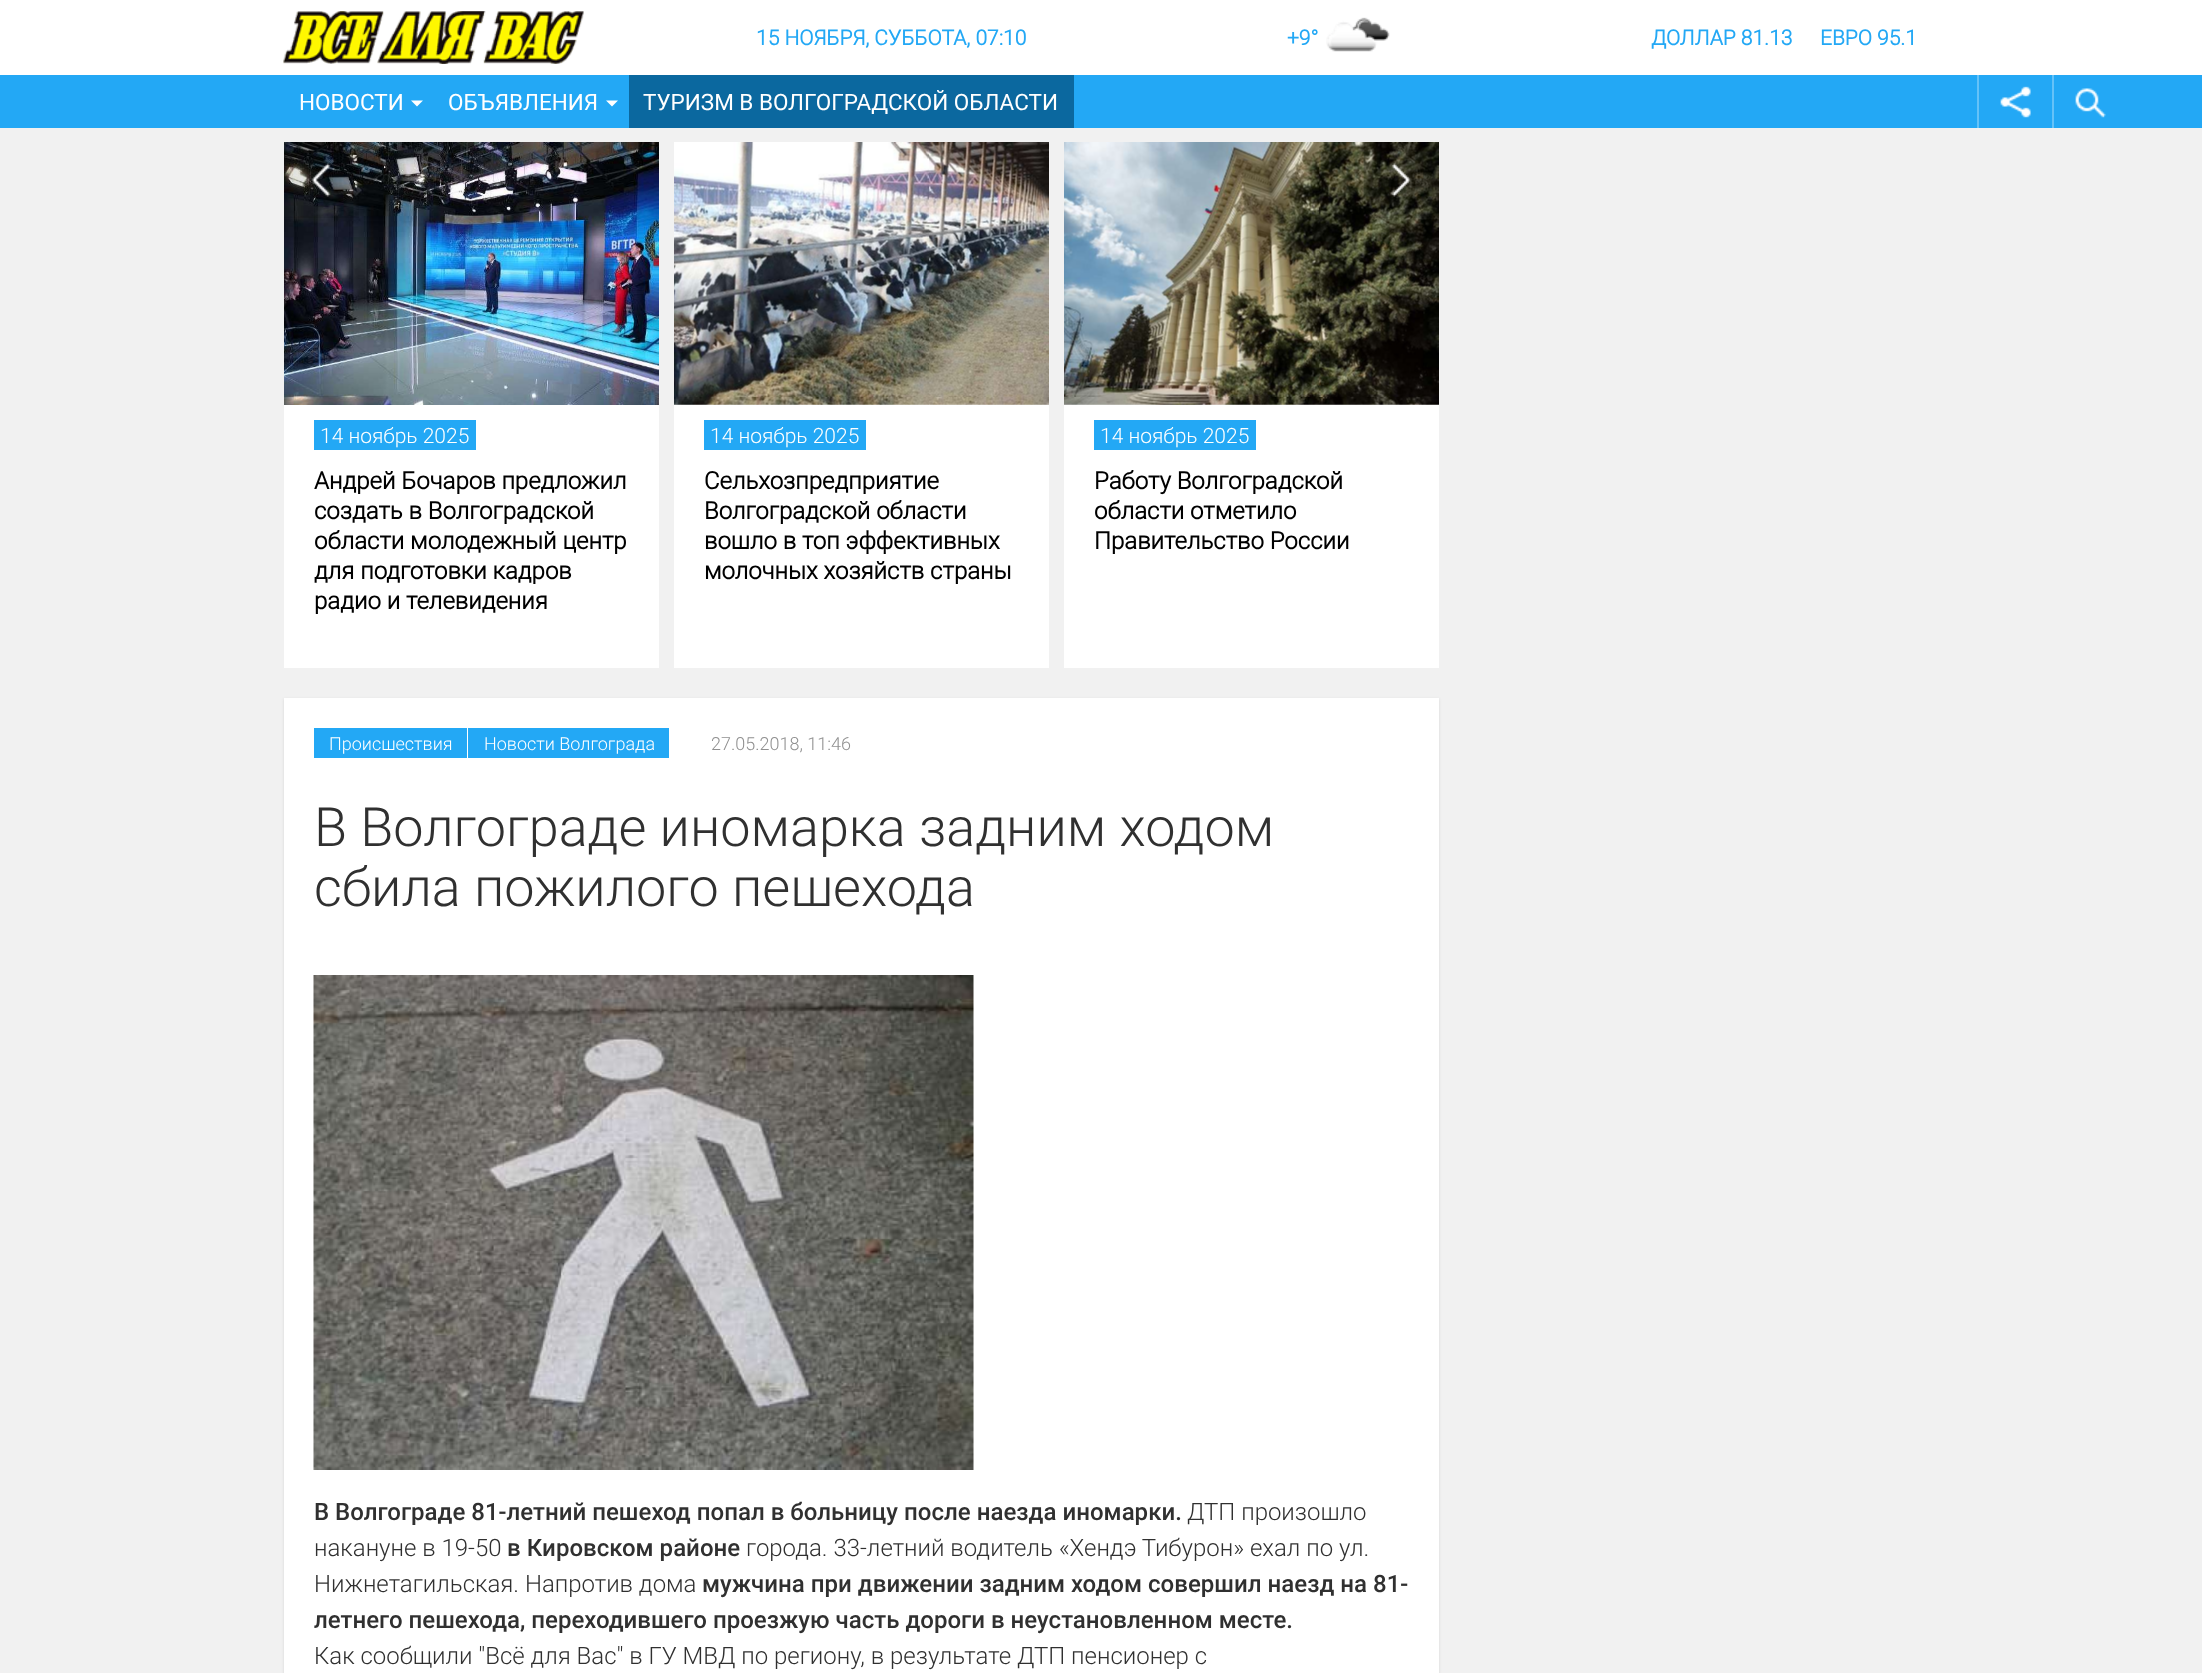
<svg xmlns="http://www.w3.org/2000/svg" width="2202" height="1673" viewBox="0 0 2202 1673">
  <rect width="100%" height="100%" fill="#f1f1f1"/>
  <path d="M0 0h2202v75H0z" fill="#fff"/>
  <image x="283" y="11" width="301" height="53" href="img/1.png"/>
  <image x="1326" y="17" width="64" height="35" href="img/2.png"/>
  <path d="M0 75h2202v53H0z" fill="#23a8f5"/>
  <path d="M411 100.5H423L417 106.5Z" fill="#fff"/>
  <path d="M606 100.5H618L612 106.5Z" fill="#fff"/>
  <path d="M629 75h445v53H629z" fill="#0b689f"/>
  <image x="2000" y="86" width="31" height="32" href="img/3.png"/>
  <path d="M1977 75h2v53H1977z" fill="#65c2f8"/>
  <image x="2075" y="88" width="31" height="30" href="img/4.png"/>
  <path d="M2052 75h2v53H2052z" fill="#65c2f8"/>
  <image x="284" y="142" width="375" height="263" href="img/7.png"/>
  <path d="M284 143h75v75H284z" fill="#0000001a"/>
  <image x="311" y="163" width="20" height="34" href="img/5.png"/>
  <image x="1064" y="142" width="375" height="263" href="img/9.png"/>
  <path d="M1364 143h75v75H1364z" fill="#0000001a"/>
  <image x="1391" y="163" width="20" height="34" href="img/6.png"/>
  <path d="M284 405h375v263H284z" fill="#fff"/>
  <path d="M314 420h162v30H314z" fill="#23a8f5"/>
  <image x="674" y="142" width="375" height="263" href="img/8.png"/>
  <path d="M674 405h375v263H674z" fill="#fff"/>
  <path d="M704 420h162v30H704z" fill="#23a8f5"/>
  <path d="M1064 405h375v263H1064z" fill="#fff"/>
  <path d="M1094 420h162v30H1094z" fill="#23a8f5"/>
  <path d="M284 699h1155v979H284z" fill="#0000001a" filter="blur(1.5px)"/>
  <path d="M284 698h1155v975H284z" fill="#fff"/>
  <path d="M314 728h153v30H314z" fill="#23a8f5"/>
  <path d="M468 728h201v30H468z" fill="#23a8f5"/>
  <image x="313" y="975" width="661" height="495" href="img/10.png"/>
  <g font-family="Roboto" font-size="21" font-weight="bold" fill="#23a8f5">
    <text x="756" y="45">15 НОЯБРЯ, СУББОТА, 07:10</text>
    <text x="1287" y="45">+9°</text>
    <text x="1651" y="45">ДОЛЛАР 81.13</text>
    <text x="1820" y="45">ЕВРО 95.1</text>
  </g>
  <g font-family="Roboto" font-size="22.5" fill="#fff">
    <text x="299" y="110">НОВОСТИ</text>
    <text x="448" y="110">ОБЪЯВЛЕНИЯ</text>
    <text x="643" y="110">ТУРИЗМ В ВОЛГОГРАДСКОЙ ОБЛАСТИ</text>
  </g>
  <text x="320" y="443" font-family="Roboto" font-size="21" font-weight="300" fill="#fff">14 ноябрь 2025</text>
  <g font-family="Roboto" font-size="24" font-weight="bold" fill="#000">
    <text x="314" y="489">Андрей Бочаров предложил</text>
    <text x="314" y="519">создать в Волгоградской</text>
    <text x="314" y="549">области молодежный центр</text>
    <text x="314" y="579">для подготовки кадров</text>
    <text x="314" y="609">радио и телевидения</text>
  </g>
  <text x="710" y="443" font-family="Roboto" font-size="21" font-weight="300" fill="#fff">14 ноябрь 2025</text>
  <g font-family="Roboto" font-size="24" font-weight="bold" fill="#000">
    <text x="704" y="489">Сельхозпредприятие</text>
    <text x="704" y="519">Волгоградской области</text>
    <text x="704" y="549">вошло в топ эффективных</text>
    <text x="704" y="579">молочных хозяйств страны</text>
  </g>
  <text x="1100" y="443" font-family="Roboto" font-size="21" font-weight="300" fill="#fff">14 ноябрь 2025</text>
  <g font-family="Roboto" font-size="24" font-weight="bold" fill="#000">
    <text x="1094" y="489">Работу Волгоградской</text>
    <text x="1094" y="519">области отметило</text>
    <text x="1094" y="549">Правительство России</text>
  </g>
  <g font-family="Roboto" font-size="18" font-weight="300" fill="#fff">
    <text x="329" y="750">Происшествия</text>
    <text x="484" y="750">Новости Волгограда</text>
  </g>
  <text x="711" y="750" font-family="Roboto" font-size="18" font-weight="300" fill="#909090">27.05.2018, 11:46</text>
  <g font-family="Roboto" font-size="54" font-weight="300" fill="#303030">
    <text x="314" y="846">В Волгограде иномарка задним ходом</text>
    <text x="314" y="906">сбила пожилого пешехода</text>
  </g>
  <text x="314" y="1520" font-family="Roboto" font-size="24" font-weight="500" fill="#303030">В Волгограде 81-летний пешеход попал в больницу после наезда иномарки.</text>
  <g font-family="Roboto" font-size="24" font-weight="300" fill="#303030">
    <text x="1187" y="1520">ДТП произошло</text>
    <text x="314" y="1556">накануне в 19-50</text>
  </g>
  <text x="507" y="1556" font-family="Roboto" font-size="24" font-weight="500" fill="#303030">в Кировском районе</text>
  <g font-family="Roboto" font-size="24" font-weight="300" fill="#303030">
    <text x="746" y="1556">города. 33-летний водитель «Хендэ Тибурон» ехал по ул.</text>
    <text x="314" y="1592">Нижнетагильская. Напротив дома</text>
  </g>
  <g font-family="Roboto" font-size="24" font-weight="500" fill="#303030">
    <text x="702" y="1592">мужчина при движении задним ходом совершил наезд на 81-</text>
    <text x="314" y="1628">летнего пешехода, переходившего проезжую часть дороги в неустановленном месте.</text>
  </g>
  <text x="314" y="1664" font-family="Roboto" font-size="24" font-weight="300" fill="#303030">Как сообщили "Всё для Вас" в ГУ МВД по региону, в результате ДТП пенсионер с</text>
</svg>
